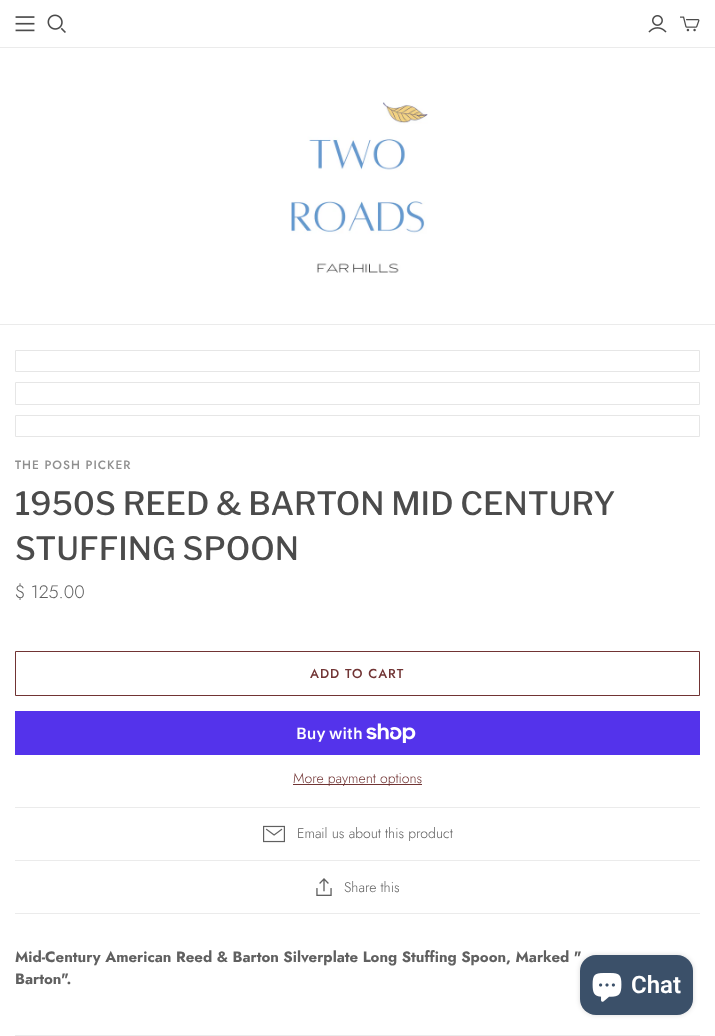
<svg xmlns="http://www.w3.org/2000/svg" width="715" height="1036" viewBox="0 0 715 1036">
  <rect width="100%" height="100%" fill="#fff"/>
  <path d="M0 324h715v1H0z" fill="#ebebeb"/>
  <image x="15" y="16" width="20" height="16" href="img/1.png"/>
  <image x="47" y="14" width="19" height="19" href="img/2.png"/>
  <image x="648" y="15" width="19" height="18" href="img/3.png"/>
  <image x="680" y="16" width="20" height="16" href="img/4.png"/>
  <path d="M0 47h715v1H0z" fill="#ebebeb"/>
  <image x="291" y="102" width="137" height="171" href="img/5.png"/>
  <path d="M15.5 350.5h684v21H15.5z" fill="none" stroke="#e6e6e6"/>
  <path d="M15.5 382.5h684v22H15.5z" fill="none" stroke="#e6e6e6"/>
  <path d="M15.5 415.5h684v21H15.5z" fill="none" stroke="#e6e6e6"/>
  <path d="M15.5 651.5h684v44H15.5z" fill="none" stroke="#713434"/>
  <path d="M15 711h685v44H15z" fill="#5433eb"/>
  <image x="366" y="723" width="50" height="20" href="img/6.png"/>
  <path d="M293 784h129v1H293z" fill="#713434"/>
  <path d="M15 807h685v1H15z" fill="#ebebeb"/>
  <path d="M15 913h685v1H15z" fill="#ebebeb"/>
  <image x="263" y="825" width="22" height="18" href="img/7.png"/>
  <path d="M15 860h685v1H15z" fill="#ebebeb"/>
  <image x="316" y="878" width="16" height="18" href="img/8.png"/>
  <rect x="580" y="955" width="113" height="60" rx="16" fill="#00000026" filter="blur(2.5px)"/>
  <path d="M15 1035h685v1H15z" fill="#ebebeb"/>
  <text x="15" y="469" font-family="Jost" font-size="12" font-weight="500" letter-spacing="1" fill="#8f8f8f">THE POSH PICKER</text>
  <g font-family="Libre Franklin" font-size="32" font-weight="500" fill="#4b4b4b">
    <text x="15" y="515">1950S REED &amp; BARTON MID CENTURY</text>
    <text x="15" y="560">STUFFING SPOON</text>
  </g>
  <text x="15" y="598" font-family="Jost" font-size="18" font-weight="300" fill="#606060">$ 125.00</text>
  <text x="310" y="678" font-family="Jost" font-size="13" font-weight="500" letter-spacing="1" fill="#713434">ADD TO CART</text>
  <text x="296" y="739" font-family="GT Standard" font-size="16" font-weight="600" fill="#fff">Buy with</text>
  <text x="293" y="783" font-family="Jost" font-size="14" font-weight="300" fill="#713434">More payment options</text>
  <g font-family="Jost" font-size="14" font-weight="300" fill="#606060">
    <text x="297" y="838">Email us about this product</text>
    <text x="344" y="892">Share this</text>
  </g>
  <g font-family="Jost" font-size="15" font-weight="bold" fill="#606060">
    <text x="15" y="962">Mid-Century American Reed &amp; Barton Silverplate Long Stuffing Spoon, Marked "</text>
    <text x="15" y="984">Barton".</text>
  </g>
  <rect x="580" y="955" width="113" height="60" rx="16" fill="#3b5069"/>
  <image x="592" y="973" width="30" height="29" href="img/9.png"/>
  <text x="631" y="993" font-family="Roboto" font-size="24" font-weight="600" fill="#fff">Chat</text>
</svg>
